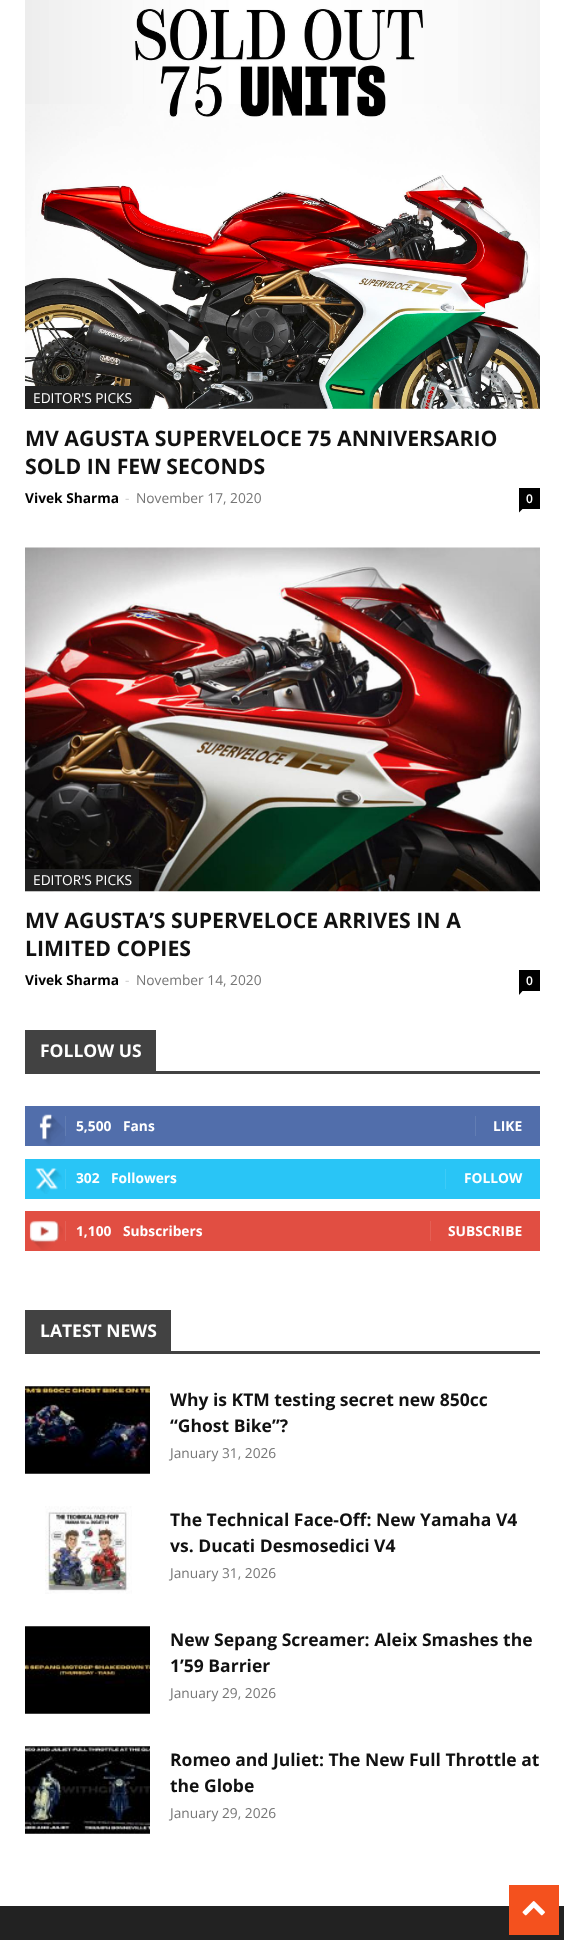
<svg xmlns="http://www.w3.org/2000/svg" width="564" height="1940" viewBox="0 0 564 1940">
  <rect width="100%" height="100%" fill="#fff"/>
  <image x="25" y="0" width="515" height="409" href="img/1.png"/>
  <path d="M25 386h114v23H25z" fill="#222"/>
  <path d="M519 488h21v21H519z" fill="#000"/>
  <path d="M519 509H522.5L519 512.5Z" fill="#000"/>
  <image x="25" y="547" width="515" height="345" href="img/2.png"/>
  <path d="M25 869h114v22H25z" fill="#222"/>
  <path d="M519 970h21v21H519z" fill="#000"/>
  <path d="M519 991H522.5L519 995Z" fill="#000"/>
  <path d="M25 1071h515v3H25z" fill="#424242"/>
  <path d="M25 1030h131v41H25z" fill="#424242"/>
  <path d="M25 1106h515v40H25z" fill="#516eab"/>
  <image x="39" y="1114" width="26" height="32" href="img/3.png"/>
  <path d="M65 1116h1v20H65z" fill="#627db3"/>
  <path d="M475 1116h1v20H475z" fill="#627db3"/>
  <path d="M25 1159h515v40H25z" fill="#29c5f6"/>
  <image x="35" y="1168" width="27" height="26" href="img/4.png"/>
  <path d="M65 1169h1v20H65z" fill="#3ecbf7"/>
  <path d="M445 1169h1v20H445z" fill="#3ecbf7"/>
  <path d="M25 1211h515v40H25z" fill="#e14e42"/>
  <image x="29" y="1220" width="34" height="30" href="img/5.png"/>
  <path d="M65 1221h1v20H65z" fill="#e46055"/>
  <path d="M430 1221h1v20H430z" fill="#e46055"/>
  <path d="M25 1351h515v3H25z" fill="#424242"/>
  <path d="M25 1310h146v41H25z" fill="#424242"/>
  <image x="25" y="1386" width="125" height="88" href="img/6.png"/>
  <image x="45" y="1506" width="87" height="88" href="img/7.png"/>
  <image x="25" y="1626" width="125" height="88" href="img/8.png"/>
  <image x="25" y="1746" width="125" height="88" href="img/9.png"/>
  <path d="M0 1906h564v34H0z" fill="#222"/>
  <path d="M509 1885h50v50H509z" fill="#f4511e"/>
  <image x="522" y="1901" width="23" height="15" href="img/10.png"/>
  <text x="33" y="403" font-family="Open Sans" font-size="13.75" fill="#fff">EDITOR'S PICKS</text>
  <g font-family="Open Sans" font-size="21.25" font-weight="bold" fill="#111">
    <text x="25" y="446">MV AGUSTA SUPERVELOCE 75 ANNIVERSARIO</text>
    <text x="25" y="474">SOLD IN FEW SECONDS</text>
  </g>
  <text x="25" y="503" font-family="Open Sans" font-size="13.75" font-weight="bold" fill="#000">Vivek Sharma</text>
  <text x="125" y="503" font-family="Open Sans" font-size="13.75" fill="#ccc">-</text>
  <text x="136" y="503" font-family="Open Sans" font-size="13.75" fill="#767676">November 17, 2020</text>
  <text x="526" y="503" font-family="Open Sans" font-size="12" font-weight="600" fill="#fff">0</text>
  <text x="33" y="885" font-family="Open Sans" font-size="13.75" fill="#fff">EDITOR'S PICKS</text>
  <g font-family="Open Sans" font-size="21.25" font-weight="bold" fill="#111">
    <text x="25" y="928">MV AGUSTA’S SUPERVELOCE ARRIVES IN A</text>
    <text x="25" y="956">LIMITED COPIES</text>
  </g>
  <text x="25" y="985" font-family="Open Sans" font-size="13.75" font-weight="bold" fill="#000">Vivek Sharma</text>
  <text x="125" y="985" font-family="Open Sans" font-size="13.75" fill="#ccc">-</text>
  <text x="136" y="985" font-family="Open Sans" font-size="13.75" fill="#767676">November 14, 2020</text>
  <text x="526" y="985" font-family="Open Sans" font-size="12" font-weight="600" fill="#fff">0</text>
  <text x="40" y="1057" font-family="Open Sans" font-size="17.5" font-weight="bold" fill="#fff">FOLLOW US</text>
  <g font-family="Open Sans" font-size="13.75" font-weight="bold" fill="#fff">
    <text x="76" y="1131">5,500</text>
    <text x="123" y="1131">Fans</text>
    <text x="493" y="1131">LIKE</text>
    <text x="76" y="1183">302</text>
    <text x="111" y="1183">Followers</text>
    <text x="464" y="1183">FOLLOW</text>
    <text x="76" y="1236">1,100</text>
    <text x="123" y="1236">Subscribers</text>
    <text x="448" y="1236">SUBSCRIBE</text>
  </g>
  <text x="40" y="1337" font-family="Open Sans" font-size="17.5" font-weight="bold" fill="#fff">LATEST NEWS</text>
  <g font-family="Open Sans" font-size="17.5" font-weight="bold" fill="#111">
    <text x="170" y="1406">Why is KTM testing secret new 850cc</text>
    <text x="170" y="1432">“Ghost Bike”?</text>
  </g>
  <text x="170" y="1458" font-family="Open Sans" font-size="13.75" fill="#767676">January 31, 2026</text>
  <g font-family="Open Sans" font-size="17.5" font-weight="bold" fill="#111">
    <text x="170" y="1526">The Technical Face-Off: New Yamaha V4</text>
    <text x="170" y="1552">vs. Ducati Desmosedici V4</text>
  </g>
  <text x="170" y="1578" font-family="Open Sans" font-size="13.75" fill="#767676">January 31, 2026</text>
  <g font-family="Open Sans" font-size="17.5" font-weight="bold" fill="#111">
    <text x="170" y="1646">New Sepang Screamer: Aleix Smashes the</text>
    <text x="170" y="1672">1’59 Barrier</text>
  </g>
  <text x="170" y="1698" font-family="Open Sans" font-size="13.75" fill="#767676">January 29, 2026</text>
  <g font-family="Open Sans" font-size="17.5" font-weight="bold" fill="#111">
    <text x="170" y="1766">Romeo and Juliet: The New Full Throttle at</text>
    <text x="170" y="1792">the Globe</text>
  </g>
  <text x="170" y="1818" font-family="Open Sans" font-size="13.75" fill="#767676">January 29, 2026</text>
</svg>
